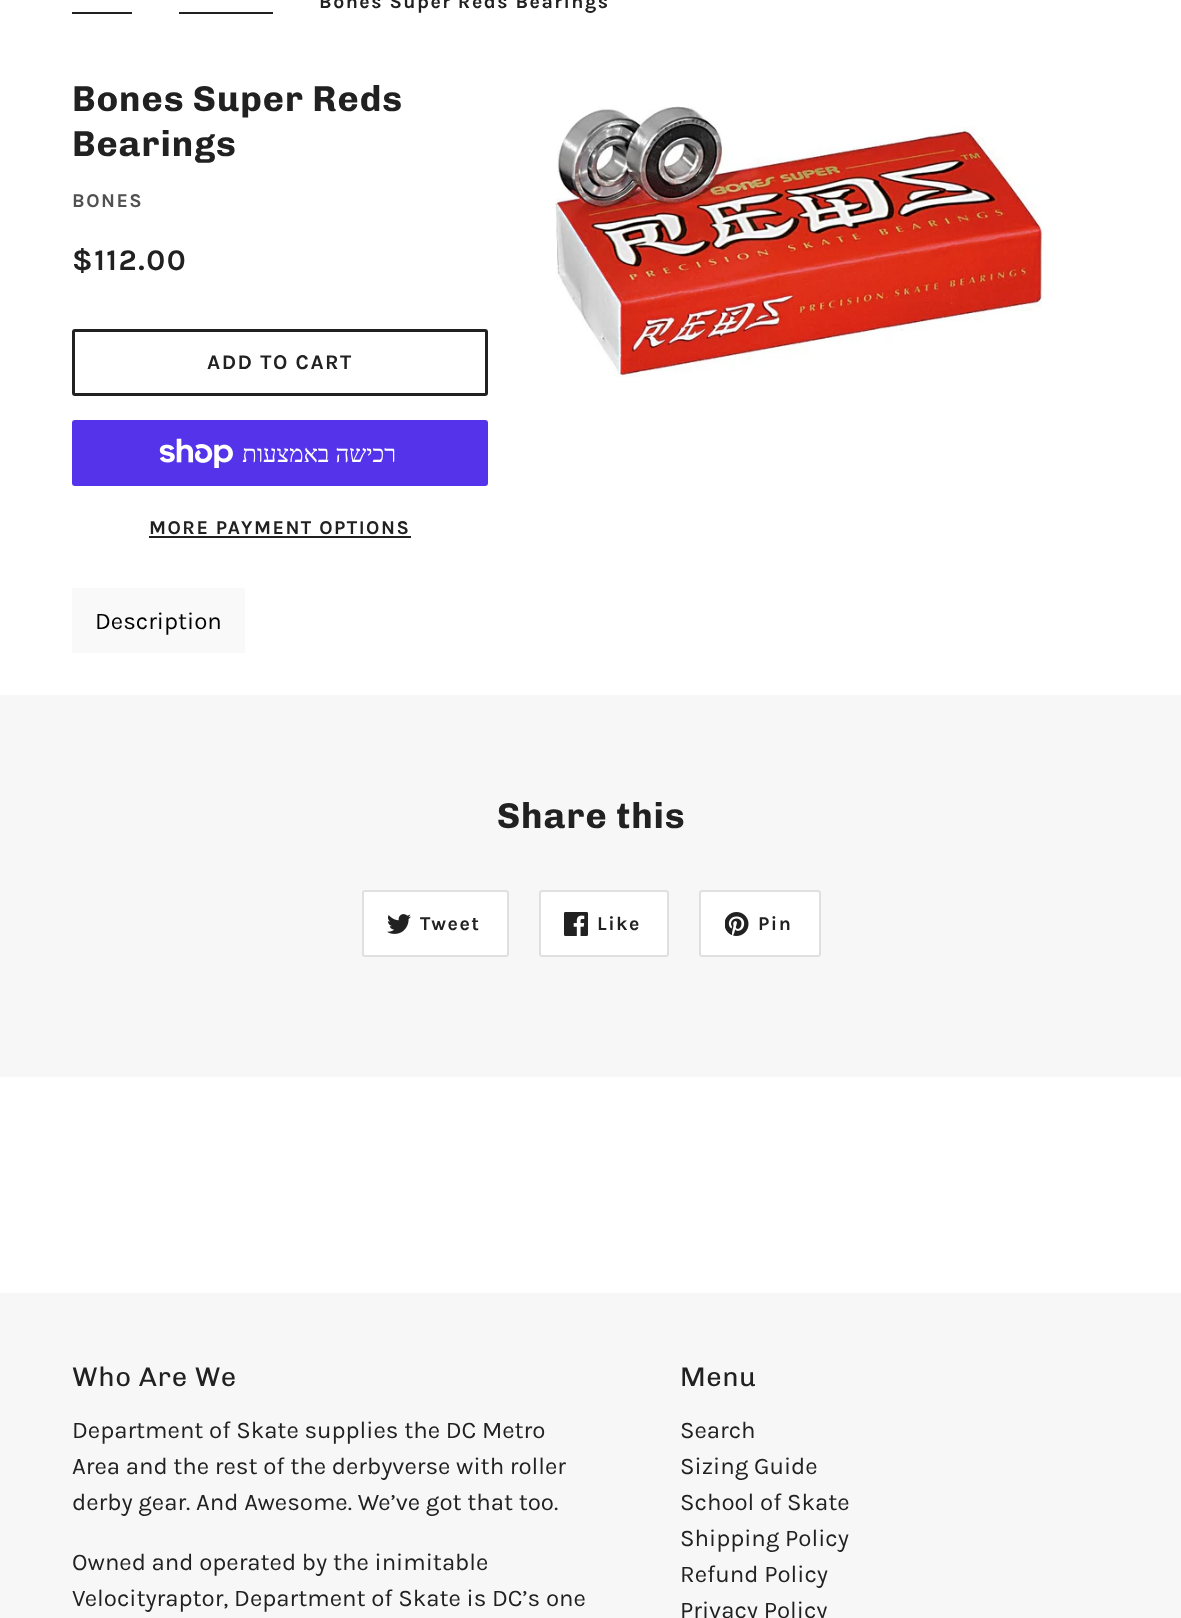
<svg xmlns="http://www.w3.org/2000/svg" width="1181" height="1618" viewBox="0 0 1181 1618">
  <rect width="100%" height="100%" fill="#fff"/>
  <path d="M72 12h60v2H72z" fill="#212121"/>
  <path d="M179 12h94v2H179z" fill="#212121"/>
  <image x="555" y="106" width="490" height="272" href="img/1.png"/>
  <rect x="73.5" y="330.5" width="413" height="64" rx="1.5" fill="none" stroke="#212121" stroke-width="3"/>
  <rect x="72" y="420" width="416" height="66" rx="3" fill="#5433eb"/>
  <image x="159" y="438" width="74" height="30" href="img/2.png"/>
  <path d="M149 536h262v2H149z" fill="#212121"/>
  <path d="M72 588h173v65H72z" fill="#f9f9f9"/>
  <path d="M0 695h1181v382H0z" fill="#f7f7f7"/>
  <rect x="363" y="891" width="145" height="65" rx="2" fill="#fff" stroke="#e0e0e0" stroke-width="2"/>
  <image x="387" y="914" width="24" height="20" href="img/3.png"/>
  <rect x="540" y="891" width="128" height="65" rx="2" fill="#fff" stroke="#e0e0e0" stroke-width="2"/>
  <image x="564" y="912" width="24" height="24" href="img/4.png"/>
  <rect x="700" y="891" width="120" height="65" rx="2" fill="#fff" stroke="#e0e0e0" stroke-width="2"/>
  <image x="725" y="912" width="24" height="24" href="img/5.png"/>
  <path d="M0 1293h1181v325H0z" fill="#f7f7f7"/>
  <text x="319" y="8" font-family="Karla" font-size="19.5" font-weight="bold" letter-spacing="1.5" fill="#212121">Bones Super Reds Bearings</text>
  <g font-family="Chivo" font-size="36" font-weight="bold" letter-spacing="0.9" fill="#212121">
    <text x="72" y="111">Bones Super Reds</text>
    <text x="72" y="156">Bearings</text>
  </g>
  <text x="72" y="207" font-family="Karla" font-size="19.5" font-weight="bold" letter-spacing="1.5" fill="#515151">BONES</text>
  <text x="72" y="270" font-family="Karla" font-size="30" font-weight="bold" letter-spacing="1.5" fill="#212121">$112.00</text>
  <text x="207" y="369" font-family="Karla" font-size="21" font-weight="bold" letter-spacing="1.5" fill="#212121">ADD TO CART</text>
  <text x="396" y="462" font-family="Liberation Serif" font-size="24" direction="rtl" fill="#fff">רכישה באמצעות</text>
  <text x="149" y="534" font-family="Karla" font-size="19.5" font-weight="bold" letter-spacing="1.5" fill="#212121">MORE PAYMENT OPTIONS</text>
  <text x="95" y="629" font-family="Karla" font-size="24" fill="#000">Description</text>
  <text x="497" y="828" font-family="Chivo" font-size="36" font-weight="bold" letter-spacing="0.9" fill="#212121">Share this</text>
  <g font-family="Karla" font-size="19.5" font-weight="bold" letter-spacing="1.5" fill="#212121">
    <text x="420" y="930">Tweet</text>
    <text x="597" y="930">Like</text>
    <text x="758" y="930">Pin</text>
  </g>
  <text x="72" y="1386" font-family="Chivo" font-size="27" letter-spacing="0.75" fill="#212121">Who Are We</text>
  <g font-family="Karla" font-size="24" fill="#212121">
    <text x="72" y="1438">Department of Skate supplies the DC Metro</text>
    <text x="72" y="1474">Area and the rest of the derbyverse with roller</text>
    <text x="72" y="1510">derby gear. And Awesome. We’ve got that too.</text>
    <text x="72" y="1570">Owned and operated by the inimitable</text>
    <text x="72" y="1606">Velocityraptor, Department of Skate is DC’s one</text>
  </g>
  <text x="680" y="1386" font-family="Chivo" font-size="27" letter-spacing="0.75" fill="#212121">Menu</text>
  <g font-family="Karla" font-size="24" fill="#212121">
    <text x="680" y="1438">Search</text>
    <text x="680" y="1474">Sizing Guide</text>
    <text x="680" y="1510">School of Skate</text>
    <text x="680" y="1546">Shipping Policy</text>
    <text x="680" y="1582">Refund Policy</text>
    <text x="680" y="1618">Privacy Policy</text>
  </g>
</svg>
